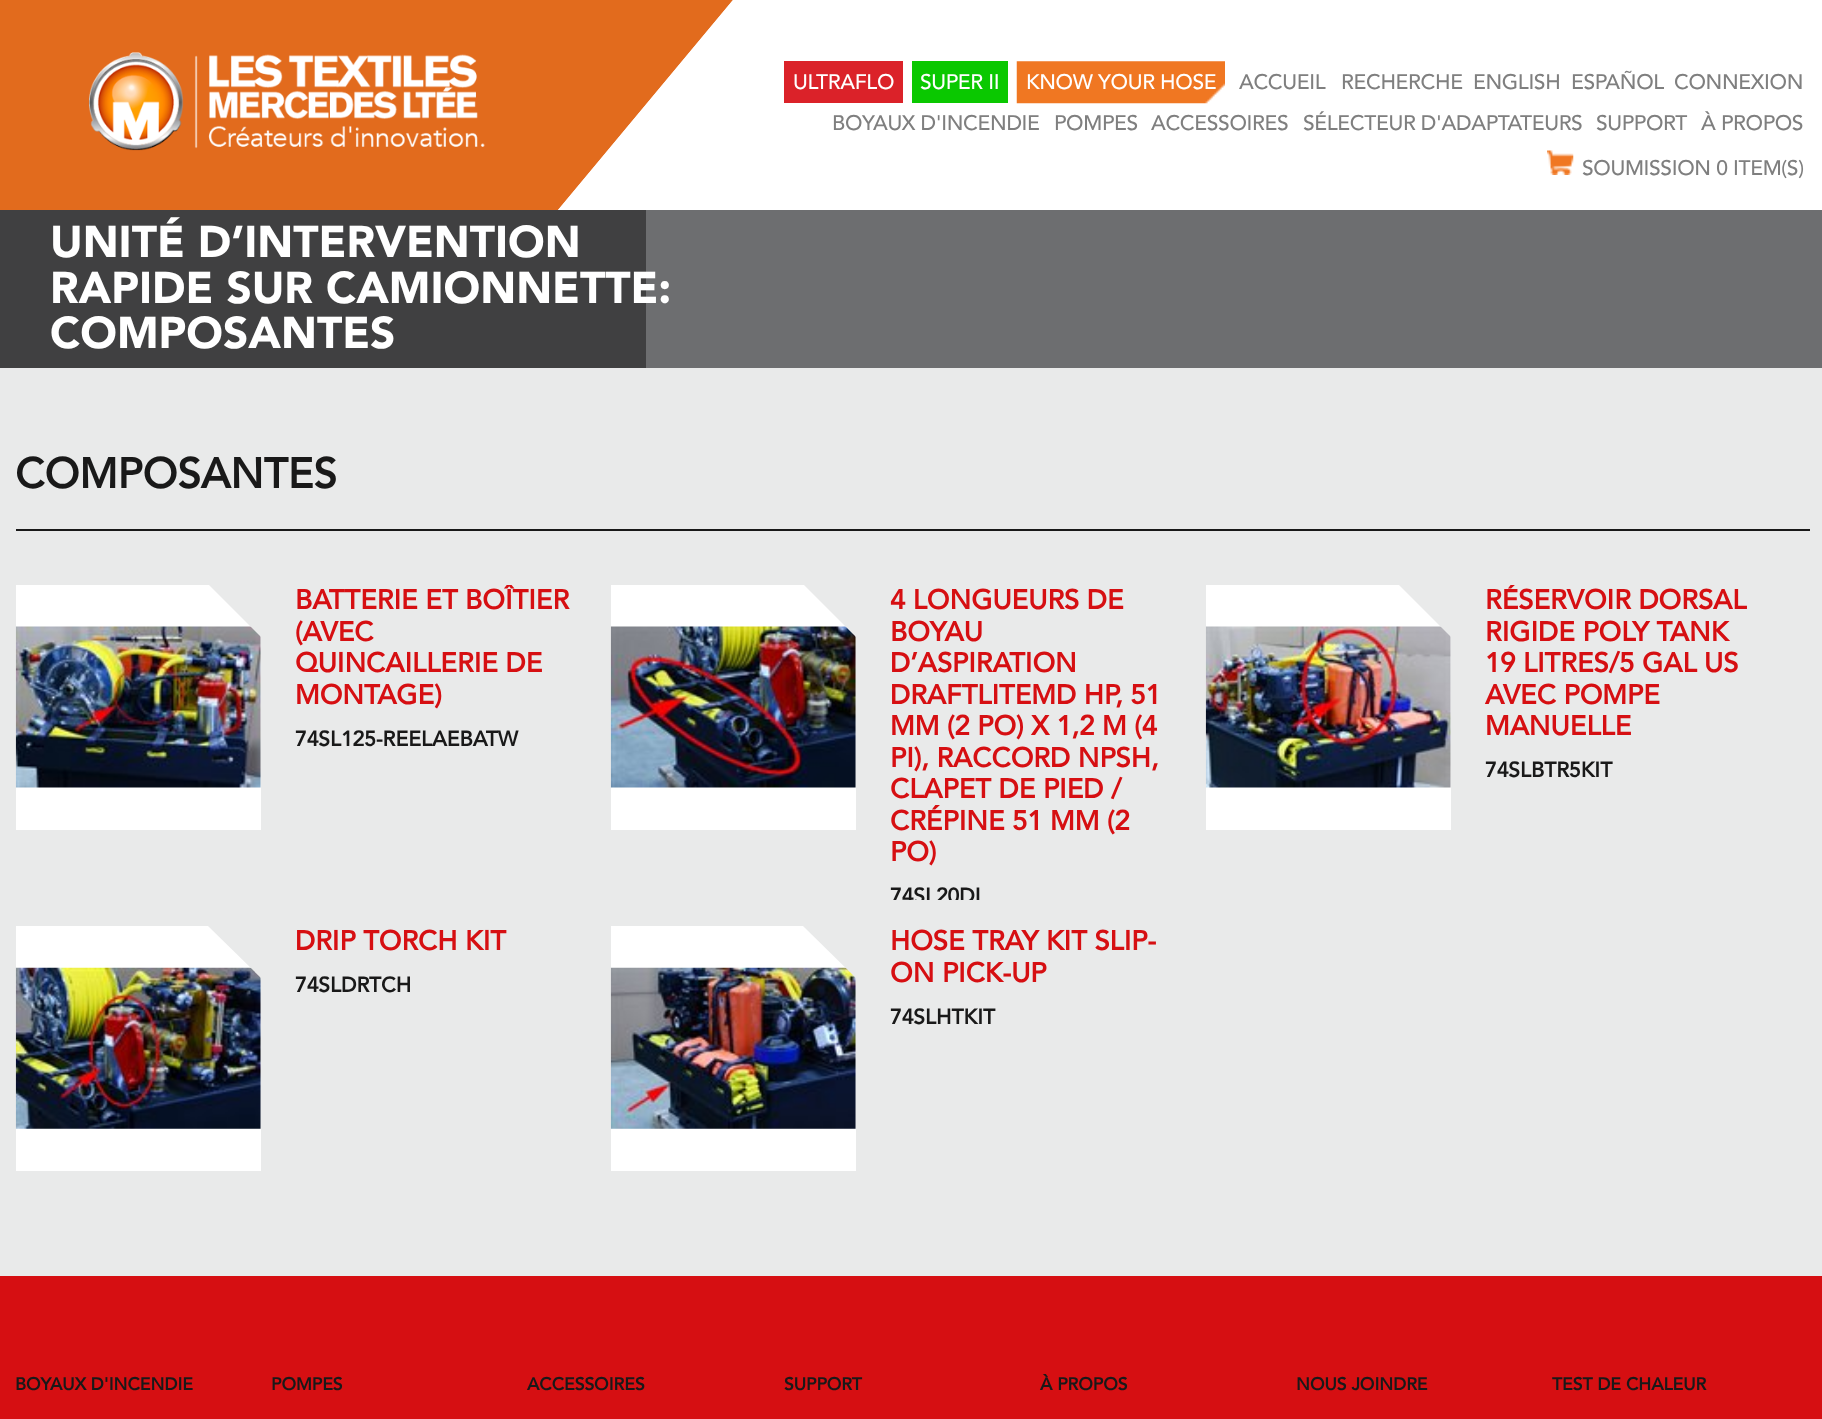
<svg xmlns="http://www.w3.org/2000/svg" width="1822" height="1419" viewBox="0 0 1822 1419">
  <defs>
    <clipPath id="clip1"><path d="M16 585h245v245H16z"/></clipPath>
    <clipPath id="clip2"><path d="M611 585h245v245H611z"/></clipPath>
    <clipPath id="clip3"><path d="M1206 585h245v245H1206z"/></clipPath>
    <clipPath id="clip4"><path d="M16 585h595v315H16z"/></clipPath>
    <clipPath id="clip5"><path d="M611 585h595v315H611z"/></clipPath>
    <clipPath id="clip6"><path d="M1206 585h595v315H1206z"/></clipPath>
  </defs>
  <rect width="100%" height="100%" fill="#e9eaea"/>
  <path d="M558 0h1264v210H558z" fill="#fff"/>
  <path d="M0 0h558v210H0z" fill="#e26b1d"/>
  <image x="89" y="52" width="396" height="99" href="img/1.png"/>
  <path d="M558 0H733L558 210Z" fill="#e26b1d"/>
  <path d="M733 0V210H558Z" fill="#fff"/>
  <path d="M784 61h119v42H784z" fill="#db2229"/>
  <path d="M912 61h96v42H912z" fill="#0ac800"/>
  <image x="1016" y="61" width="209" height="43" href="img/2.png"/>
  <image x="1547" y="150" width="27" height="25" href="img/3.png"/>
  <path d="M646 210h1176v158H646z" fill="#6d6e70"/>
  <path d="M0 210h646v158H0z" fill="#404041"/>
  <path d="M16 529h1794v2H16z" fill="#191919"/>
  <path d="M16 585h245v245H16z" fill="#fff"/>
  <image x="15" y="626" width="246" height="162" href="img/4.png"/>
  <g clip-path="url(#clip1)">
    <path d="M208 584H261V637Z" fill="#e9eaea"/>
  </g>
  <path d="M611 585h245v245H611z" fill="#fff"/>
  <image x="610" y="626" width="246" height="162" href="img/5.png"/>
  <g clip-path="url(#clip2)">
    <path d="M803 584H856V637Z" fill="#e9eaea"/>
  </g>
  <path d="M1206 585h245v245H1206z" fill="#fff"/>
  <image x="1205" y="626" width="246" height="162" href="img/6.png"/>
  <g clip-path="url(#clip3)">
    <path d="M1398 584H1451V637Z" fill="#e9eaea"/>
  </g>
  <path d="M16 926h245v245H16z" fill="#fff"/>
  <image x="15" y="967" width="246" height="162" href="img/7.png"/>
  <path d="M208 926H261V978Z" fill="#e9eaea"/>
  <path d="M611 926h245v245H611z" fill="#fff"/>
  <image x="610" y="967" width="246" height="162" href="img/8.png"/>
  <path d="M803 926H856V978Z" fill="#e9eaea"/>
  <path d="M0 1276h1822v143H0z" fill="#d60f12"/>
  <g font-family="Avenir" font-size="21" font-weight="500" letter-spacing="-0.35" fill="#fff">
    <text x="793" y="89">ULTRAFLO</text>
    <text x="920" y="89">SUPER II</text>
    <text x="1026" y="89">KNOW YOUR HOSE</text>
  </g>
  <g font-family="Avenir" font-size="21" font-weight="500" letter-spacing="-0.35" fill="#7f7f7f">
    <text x="1239" y="89">ACCUEIL</text>
    <text x="1341" y="89">RECHERCHE</text>
    <text x="1473" y="89">ENGLISH</text>
    <text x="1571" y="89">ESPAÑOL</text>
    <text x="1674" y="89">CONNEXION</text>
    <text x="832" y="130">BOYAUX D'INCENDIE</text>
    <text x="1054" y="130">POMPES</text>
    <text x="1151" y="130">ACCESSOIRES</text>
    <text x="1303" y="130">SÉLECTEUR D'ADAPTATEURS</text>
    <text x="1596" y="130">SUPPORT</text>
    <text x="1701" y="130">À PROPOS</text>
    <text x="1582" y="175">SOUMISSION 0 ITEM(S)</text>
  </g>
  <g font-family="Avenir" font-size="44.1" font-weight="900" fill="#fff">
    <text x="50" y="257">UNITÉ D’INTERVENTION</text>
    <text x="50" y="303">RAPIDE SUR CAMIONNETTE:</text>
    <text x="50" y="348">COMPOSANTES</text>
  </g>
  <text x="15" y="488" font-family="Avenir" font-size="42" font-weight="bold" fill="#191919">COMPOSANTES</text>
  <g clip-path="url(#clip4)">
    <text x="295" y="609" font-family="Avenir" font-size="27.25" font-weight="bold" fill="#d60f12">BATTERIE ET BOÎTIER</text>
  </g>
  <g font-family="Avenir" font-size="27.25" font-weight="bold" fill="#d60f12">
    <text x="295" y="641">(AVEC</text>
    <text x="295" y="672">QUINCAILLERIE DE</text>
    <text x="295" y="704">MONTAGE)</text>
  </g>
  <text x="295" y="746" font-family="Avenir" font-size="21" font-weight="bold" fill="#191919">74SL125-REELAEBATW</text>
  <g font-family="Avenir" font-size="27.25" font-weight="bold" fill="#d60f12">
    <text x="890" y="609">4 LONGUEURS DE</text>
    <text x="890" y="641">BOYAU</text>
    <text x="890" y="672">D’ASPIRATION</text>
    <text x="890" y="704">DRAFTLITEMD HP, 51</text>
    <text x="890" y="735">MM (2 PO) X 1,2 M (4</text>
    <text x="890" y="767">PI), RACCORD NPSH,</text>
    <text x="890" y="798">CLAPET DE PIED /</text>
    <text x="890" y="830">CRÉPINE 51 MM (2</text>
    <text x="890" y="861">PO)</text>
  </g>
  <g clip-path="url(#clip5)">
    <text x="890" y="903" font-family="Avenir" font-size="21" font-weight="bold" fill="#191919">74SL20DL</text>
  </g>
  <g clip-path="url(#clip6)">
    <text x="1485" y="609" font-family="Avenir" font-size="27.25" font-weight="bold" fill="#d60f12">RÉSERVOIR DORSAL</text>
  </g>
  <g font-family="Avenir" font-size="27.25" font-weight="bold" fill="#d60f12">
    <text x="1485" y="641">RIGIDE POLY TANK</text>
    <text x="1485" y="672">19 LITRES/5 GAL US</text>
    <text x="1485" y="704">AVEC POMPE</text>
    <text x="1485" y="735">MANUELLE</text>
  </g>
  <text x="1485" y="777" font-family="Avenir" font-size="21" font-weight="bold" fill="#191919">74SLBTR5KIT</text>
  <text x="295" y="950" font-family="Avenir" font-size="27.25" font-weight="bold" fill="#d60f12">DRIP TORCH KIT</text>
  <text x="295" y="992" font-family="Avenir" font-size="21" font-weight="bold" fill="#191919">74SLDRTCH</text>
  <g font-family="Avenir" font-size="27.25" font-weight="bold" fill="#d60f12">
    <text x="890" y="950">HOSE TRAY KIT SLIP-</text>
    <text x="890" y="982">ON PICK-UP</text>
  </g>
  <text x="890" y="1024" font-family="Avenir" font-size="21" font-weight="bold" fill="#191919">74SLHTKIT</text>
  <g font-family="Avenir" font-size="17.5" font-weight="bold" fill="#191919">
    <text x="15" y="1390">BOYAUX D'INCENDIE</text>
    <text x="271" y="1390">POMPES</text>
    <text x="527" y="1390">ACCESSOIRES</text>
    <text x="784" y="1390">SUPPORT</text>
    <text x="1040" y="1390">À PROPOS</text>
    <text x="1296" y="1390">NOUS JOINDRE</text>
    <text x="1552" y="1390">TEST DE CHALEUR</text>
  </g>
</svg>
